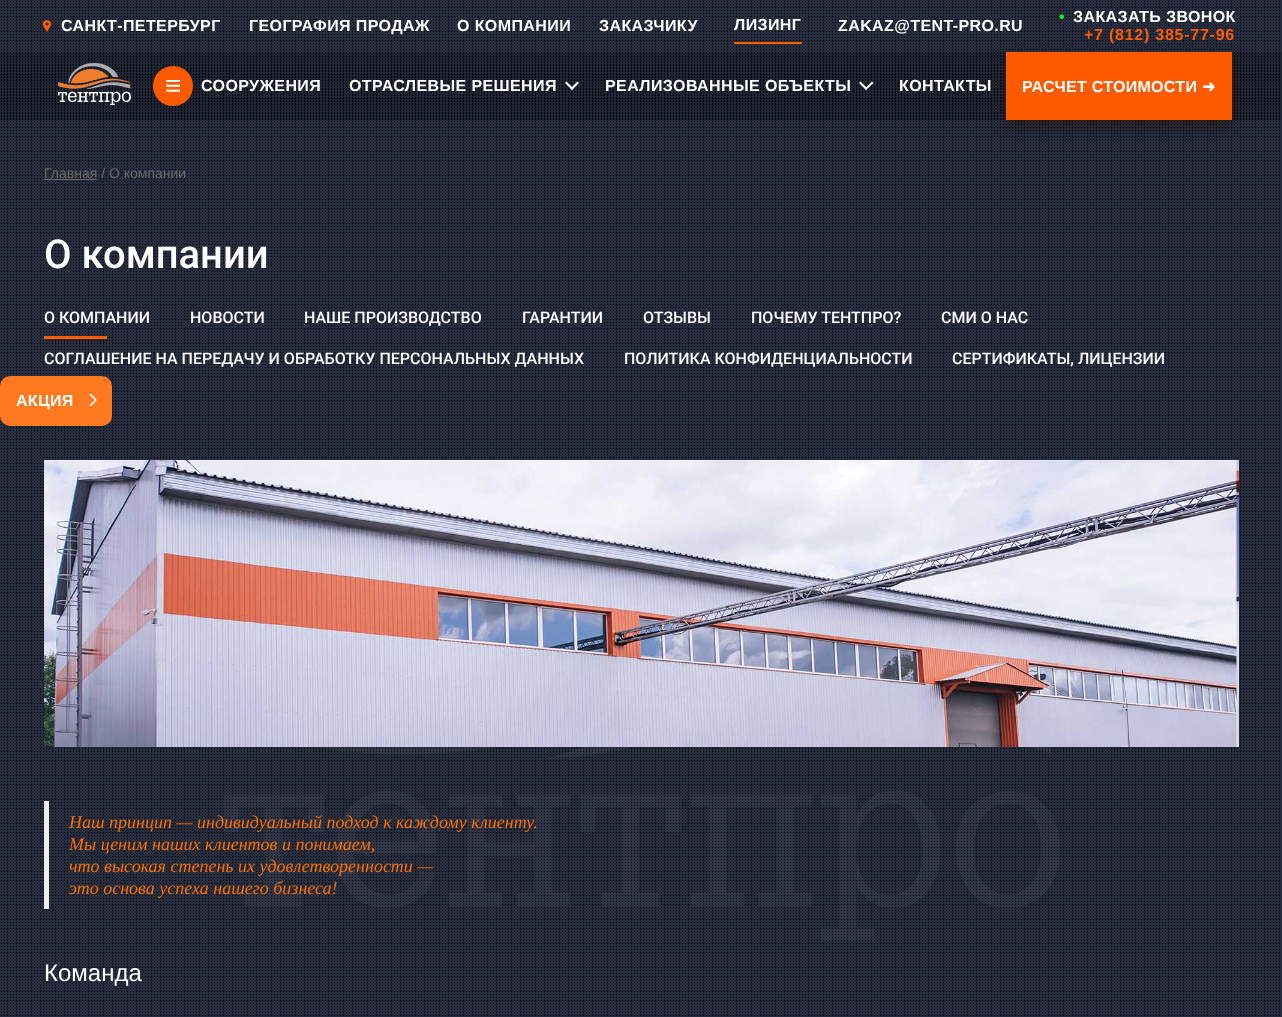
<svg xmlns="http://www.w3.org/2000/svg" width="1282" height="1017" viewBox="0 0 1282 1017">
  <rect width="100%" height="100%" fill="#252c3d"/>
  <image x="1" y="1" width="1279" height="1015" href="img/1.png"/>
  <image x="42" y="20" width="10" height="12" href="img/2.png"/>
  <path d="M734 42h68v2H734z" fill="#ff5a00"/>
  <path d="M0 52h1282v68H0z" fill="#151a2452"/>
  <image x="1" y="53" width="1279" height="67" href="img/3.png"/>
  <image x="58" y="63" width="73" height="42" href="img/4.png"/>
  <circle cx="173" cy="86" r="20" fill="#ff5a00"/>
  <path d="M579 83L572 90L570.5 88.5L577.5 81.5Z" fill="#fff"/>
  <path d="M573.5 88.5L572 90L565 83L566.5 81.5Z" fill="#fff"/>
  <path d="M873.5 83L866 90L865 88.5L872 81.5Z" fill="#fff"/>
  <path d="M867.5 88.5L866 90L859 83L860.5 81.5Z" fill="#fff"/>
  <path d="M1006 58h226v68H1006z" fill="#26130999" filter="blur(7px)"/>
  <path d="M1006 52h226v68H1006z" fill="#ff5a00"/>
  <rect y="376" width="112" height="50" rx="10" fill="#ff7a1f"/>
  <path d="M91 393.5L96.5 399.5L95.5 400.5L89.5 395Z" fill="#fff"/>
  <path d="M89.5 405L95.5 399.5L96.5 400.5L91 406.5Z" fill="#fff"/>
  <path d="M44 179h53v1H44z" fill="#6a6a6a"/>
  <path d="M44 336h63v3H44z" fill="#ff5a00"/>
  <image x="223" y="747" width="837" height="194" href="img/5.png"/>
  <image x="44" y="460" width="1195" height="287" href="img/6.png"/>
  <path d="M44 801h5v108H44z" fill="#eee"/>
  <g font-family="Liberation Sans" font-size="16" font-weight="bold" letter-spacing="0.4" fill="#fff">
    <text x="61" y="31">САНКТ-ПЕТЕРБУРГ</text>
    <text x="249" y="31">ГЕОГРАФИЯ ПРОДАЖ</text>
    <text x="457" y="31">О КОМПАНИИ</text>
    <text x="599" y="31">ЗАКАЗЧИКУ</text>
    <text x="734" y="30">ЛИЗИНГ</text>
    <text x="838" y="31">ZAKAZ@TENT-PRO.RU</text>
  </g>
  <text x="1059" y="22" font-family="Liberation Sans" font-size="16" font-weight="bold" letter-spacing="0.4" fill="#00ff1e">•</text>
  <text x="1073" y="22" font-family="Liberation Sans" font-size="16" font-weight="bold" letter-spacing="0.4" fill="#fff">ЗАКАЗАТЬ ЗВОНОК</text>
  <text x="1084" y="40" font-family="Liberation Sans" font-size="16" font-weight="bold" letter-spacing="0.75" fill="#ff5a00">+7 (812) 385-77-96</text>
  <text x="165" y="95" font-family="Liberation Sans" font-size="28" letter-spacing="0.4" fill="#fff">≡</text>
  <g font-family="Liberation Sans" font-size="16" font-weight="bold" letter-spacing="0.4" fill="#fff">
    <text x="201" y="91">СООРУЖЕНИЯ</text>
    <text x="349" y="91">ОТРАСЛЕВЫЕ РЕШЕНИЯ</text>
    <text x="605" y="91">РЕАЛИЗОВАННЫЕ ОБЪЕКТЫ</text>
    <text x="899" y="91">КОНТАКТЫ</text>
  </g>
  <text x="1022" y="92" font-family="Liberation Sans" font-size="16" font-weight="bold" letter-spacing="0.3" fill="#fff">РАСЧЕТ СТОИМОСТИ</text>
  <text x="1202" y="92" font-family="DejaVu Sans" font-size="16" font-weight="bold" letter-spacing="0.3" fill="#fff">➜</text>
  <text x="16" y="406" font-family="Liberation Sans" font-size="16" font-weight="bold" letter-spacing="0.3" fill="#fff">АКЦИЯ</text>
  <text x="44" y="178" font-family="Liberation Sans" font-size="14" fill="#6a6a6a">Главная / О компании</text>
  <text x="44" y="268" font-family="Roboto" font-size="40" font-weight="500" fill="#fff">О компании</text>
  <g font-family="Roboto" font-size="16" font-weight="500" fill="#fff">
    <text x="44" y="323">О КОМПАНИИ</text>
    <text x="190" y="323">НОВОСТИ</text>
    <text x="304" y="323">НАШЕ ПРОИЗВОДСТВО</text>
    <text x="522" y="323">ГАРАНТИИ</text>
    <text x="643" y="323">ОТЗЫВЫ</text>
    <text x="751" y="323">ПОЧЕМУ ТЕНТПРО?</text>
    <text x="941" y="323">СМИ О НАС</text>
    <text x="44" y="364">СОГЛАШЕНИЕ НА ПЕРЕДАЧУ И ОБРАБОТКУ ПЕРСОНАЛЬНЫХ ДАННЫХ</text>
    <text x="624" y="364">ПОЛИТИКА КОНФИДЕНЦИАЛЬНОСТИ</text>
    <text x="952" y="364">СЕРТИФИКАТЫ, ЛИЦЕНЗИИ</text>
  </g>
  <g font-family="Liberation Serif" font-size="18" font-style="italic" fill="#fc6f02">
    <text x="69" y="828">Наш принцип — индивидуальный подход к каждому клиенту.</text>
    <text x="69" y="850">Мы ценим наших клиентов и понимаем,</text>
    <text x="69" y="872">что высокая степень их удовлетворенности —</text>
    <text x="69" y="894">это основа успеха нашего бизнеса!</text>
  </g>
  <text x="44" y="981" font-family="Liberation Sans" font-size="24" fill="#fff">Команда</text>
</svg>
